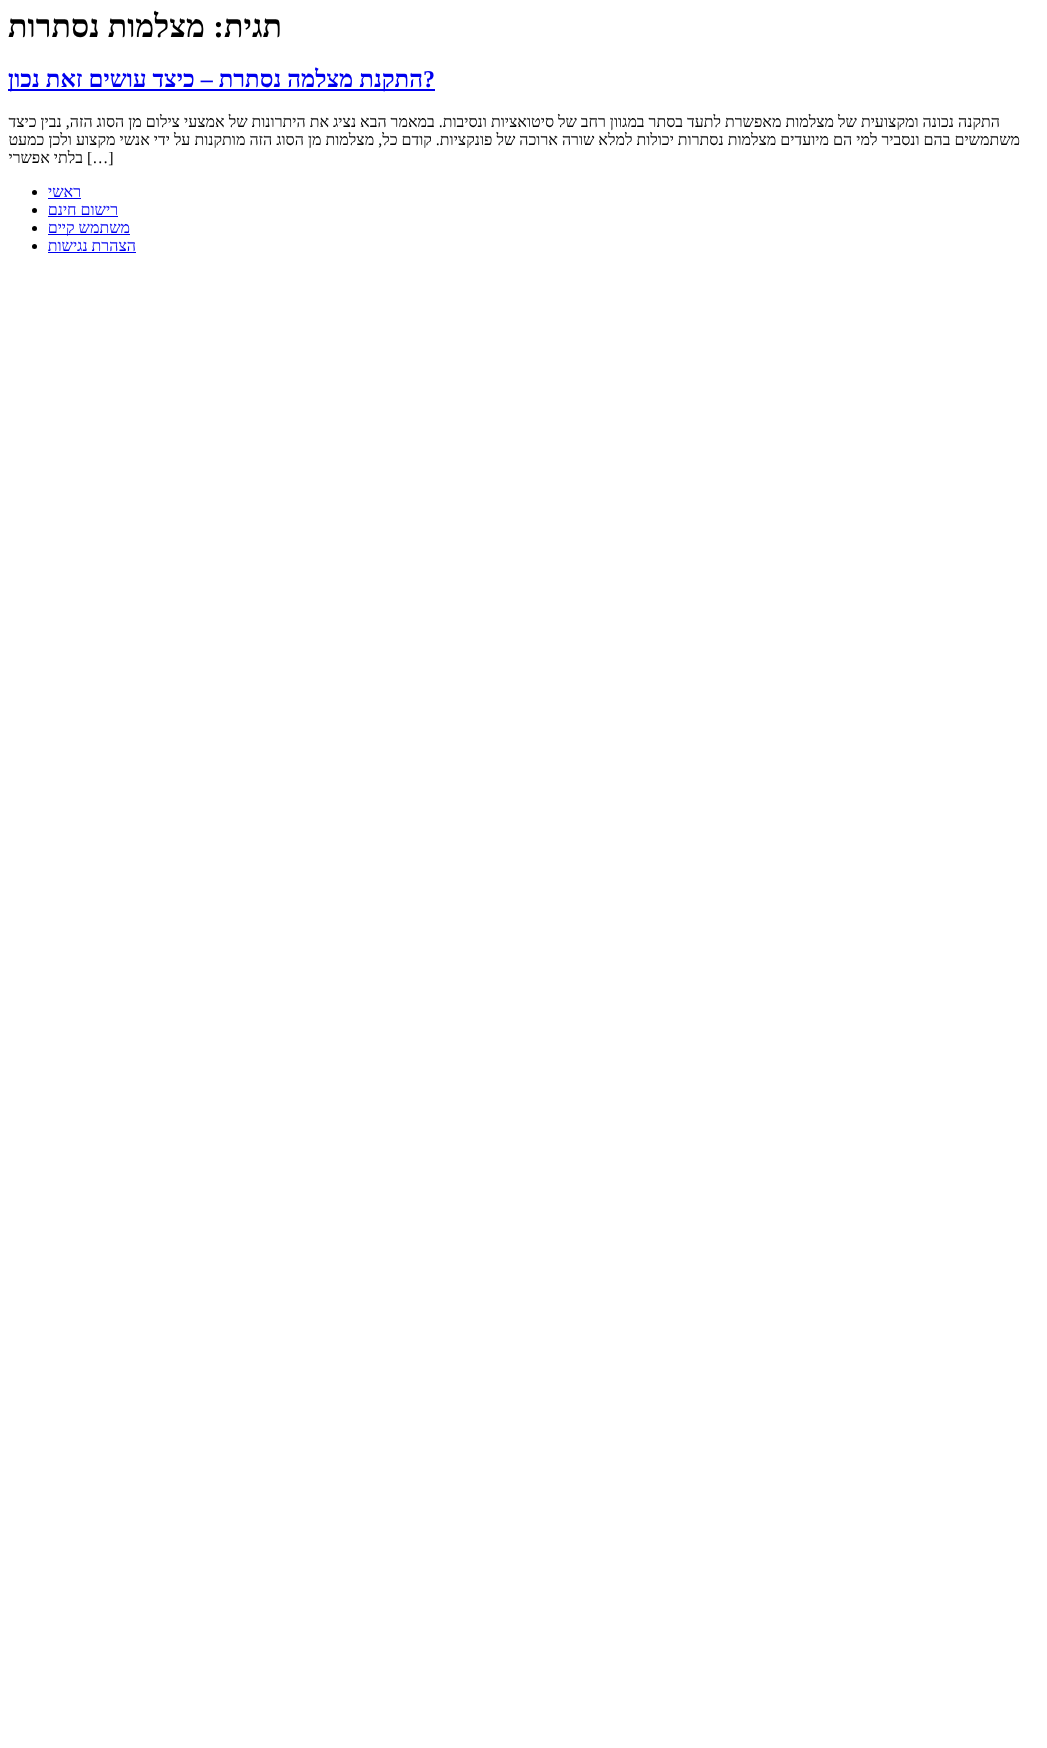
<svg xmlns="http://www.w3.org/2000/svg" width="1047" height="1748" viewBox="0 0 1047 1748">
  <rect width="100%" height="100%" fill="#fff"/>
  <path d="M8 89h427v2H8z" fill="#00e"/>
  <path d="M48 198h33v1H48z" fill="#00e"/>
  <circle cx="34.5" cy="192.5" r="2.5" fill="#000"/>
  <path d="M48 216h70v1H48z" fill="#00e"/>
  <circle cx="34.5" cy="210.5" r="2.5" fill="#000"/>
  <path d="M48 234h82v1H48z" fill="#00e"/>
  <circle cx="34.5" cy="228.5" r="2.5" fill="#000"/>
  <path d="M48 252h88v1H48z" fill="#00e"/>
  <circle cx="34.5" cy="246.5" r="2.5" fill="#000"/>
  <g font-family="Liberation Serif" font-size="32" font-weight="bold" direction="rtl" fill="#000">
    <text x="282" y="37">תגית:</text>
    <text x="205" y="37">מצלמות נסתרות</text>
  </g>
  <text x="423" y="87" font-family="Liberation Serif" font-size="24" font-weight="bold" fill="#00e">?</text>
  <text x="423" y="87" font-family="Liberation Serif" font-size="24" font-weight="bold" direction="rtl" fill="#00e">התקנת מצלמה נסתרת – כיצד עושים זאת נכון</text>
  <g font-family="Liberation Serif" font-size="16" direction="rtl" fill="#000">
    <text x="1000" y="127">התקנה נכונה ומקצועית של מצלמות מאפשרת לתעד בסתר במגוון רחב של סיטואציות ונסיבות. במאמר הבא נציג את היתרונות של אמצעי צילום מן הסוג הזה, נבין כיצד</text>
    <text x="1020" y="145">משתמשים בהם ונסביר למי הם מיועדים מצלמות נסתרות יכולות למלא שורה ארוכה של פונקציות. קודם כל, מצלמות מן הסוג הזה מותקנות על ידי אנשי מקצוע ולכן כמעט</text>
  </g>
  <text x="87" y="163" font-family="Liberation Serif" font-size="16" fill="#000">[…]</text>
  <text x="83" y="163" font-family="Liberation Serif" font-size="16" direction="rtl" fill="#000">בלתי אפשרי</text>
  <g font-family="Liberation Serif" font-size="16" direction="rtl" fill="#00e">
    <text x="81" y="197">ראשי</text>
    <text x="118" y="215">רישום חינם</text>
    <text x="130" y="233">משתמש קיים</text>
    <text x="136" y="251">הצהרת נגישות</text>
  </g>
</svg>
